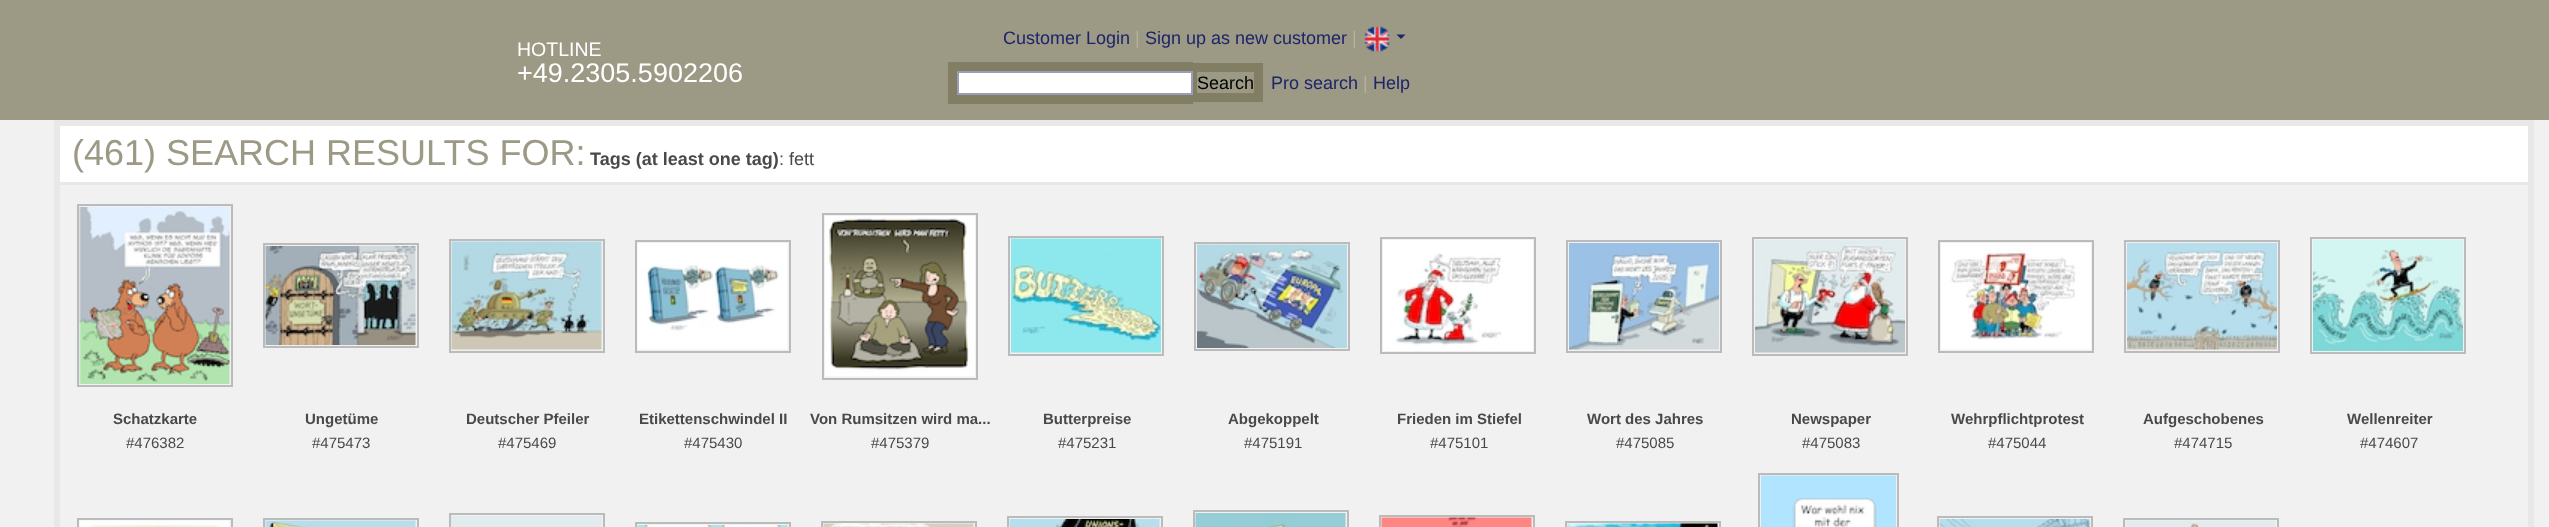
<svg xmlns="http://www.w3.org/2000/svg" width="2549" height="527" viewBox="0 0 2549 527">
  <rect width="100%" height="100%" fill="#f1f1f1"/>
  <path d="M0 0h2549v120H0z" fill="#9c9984"/>
  <image x="1364" y="26" width="26" height="26" href="img/1.png"/>
  <path d="M1396.5 34.5H1405.5L1401 39Z" fill="#1d246c"/>
  <path d="M948 62h245v42H948z" fill="#827e63"/>
  <path d="M1193 63h70v39H1193z" fill="#827e63"/>
  <path d="M958 72h234v22H958z" fill="#fff" stroke="#999cbb" stroke-width="2"/>
  <path d="M1197 72h57v21H1197z" fill="#9c9984"/>
  <path d="M57 123h2474v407H57z" fill="none" stroke="#e8e8e8" stroke-width="6"/>
  <path d="M60 126h2468v56H60z" fill="#fff"/>
  <path d="M60 182h2468v3H60z" fill="#e8e8e8"/>
  <path d="M78 205h154v181H78z" fill="none" stroke="#bbb" stroke-width="2"/>
  <image x="79" y="207" width="151" height="177" href="img/2.png"/>
  <path d="M264 244h154v103H264z" fill="none" stroke="#bbb" stroke-width="2"/>
  <image x="265" y="246" width="151" height="99" href="img/3.png"/>
  <path d="M450 240h154v112H450z" fill="none" stroke="#bbb" stroke-width="2"/>
  <image x="451" y="241" width="151" height="109" href="img/4.png"/>
  <path d="M636 241h154v111H636z" fill="none" stroke="#bbb" stroke-width="2"/>
  <image x="637" y="243" width="151" height="107" href="img/5.png"/>
  <path d="M823 214h154v165H823z" fill="none" stroke="#bbb" stroke-width="2"/>
  <image x="825" y="216" width="150" height="161" href="img/6.png"/>
  <path d="M1009 237h154v118H1009z" fill="none" stroke="#bbb" stroke-width="2"/>
  <image x="1011" y="238" width="150" height="115" href="img/7.png"/>
  <path d="M1195 243h154v107H1195z" fill="none" stroke="#bbb" stroke-width="2"/>
  <image x="1197" y="244" width="150" height="104" href="img/8.png"/>
  <path d="M1381 238h154v115H1381z" fill="none" stroke="#bbb" stroke-width="2"/>
  <image x="1383" y="240" width="150" height="111" href="img/9.png"/>
  <path d="M1567 241h154v111H1567z" fill="none" stroke="#bbb" stroke-width="2"/>
  <image x="1569" y="243" width="150" height="107" href="img/10.png"/>
  <path d="M1753 238h154v117H1753z" fill="none" stroke="#bbb" stroke-width="2"/>
  <image x="1755" y="240" width="150" height="113" href="img/11.png"/>
  <path d="M1939 241h154v111H1939z" fill="none" stroke="#bbb" stroke-width="2"/>
  <image x="1941" y="243" width="150" height="107" href="img/12.png"/>
  <path d="M2125 241h154v111H2125z" fill="none" stroke="#bbb" stroke-width="2"/>
  <image x="2127" y="243" width="150" height="107" href="img/13.png"/>
  <path d="M2311 238h154v115H2311z" fill="none" stroke="#bbb" stroke-width="2"/>
  <image x="2313" y="240" width="150" height="111" href="img/14.png"/>
  <path d="M78 519h154v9H78z" fill="none" stroke="#bbb" stroke-width="2"/>
  <image x="79" y="520" width="151" height="7" href="img/15.png"/>
  <path d="M264 519h154v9H264z" fill="none" stroke="#bbb" stroke-width="2"/>
  <image x="265" y="520" width="151" height="7" href="img/16.png"/>
  <path d="M450 514h154v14H450z" fill="none" stroke="#bbb" stroke-width="2"/>
  <path d="M451 516h151v11H451z" fill="#e2ecee"/>
  <path d="M636 523h154v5H636z" fill="none" stroke="#bbb" stroke-width="2"/>
  <image x="637" y="525" width="151" height="2" href="img/17.png"/>
  <path d="M822 522h154v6H822z" fill="none" stroke="#bbb" stroke-width="2"/>
  <image x="823" y="523" width="151" height="4" href="img/18.png"/>
  <path d="M1008 517h154v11H1008z" fill="none" stroke="#bbb" stroke-width="2"/>
  <image x="1009" y="519" width="151" height="8" href="img/19.png"/>
  <path d="M1194 511h154v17H1194z" fill="none" stroke="#bbb" stroke-width="2"/>
  <image x="1195" y="513" width="151" height="14" href="img/20.png"/>
  <path d="M1380 516h154v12H1380z" fill="none" stroke="#bbb" stroke-width="2"/>
  <image x="1381" y="517" width="151" height="10" href="img/21.png"/>
  <path d="M1566 522h154v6H1566z" fill="none" stroke="#bbb" stroke-width="2"/>
  <image x="1567" y="523" width="151" height="4" href="img/22.png"/>
  <path d="M1759 474h139v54H1759z" fill="none" stroke="#bbb" stroke-width="2"/>
  <image x="1761" y="475" width="135" height="52" href="img/23.png"/>
  <path d="M1938 517h154v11H1938z" fill="none" stroke="#bbb" stroke-width="2"/>
  <image x="1939" y="519" width="151" height="8" href="img/24.png"/>
  <path d="M2124 519h154v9H2124z" fill="none" stroke="#bbb" stroke-width="2"/>
  <image x="2125" y="520" width="151" height="7" href="img/25.png"/>
  <text x="1003" y="44" font-family="Liberation Sans" font-size="18" fill="#1d246c">Customer Login</text>
  <text x="1135" y="44" font-family="Liberation Sans" font-size="18" fill="#b5b29b">|</text>
  <text x="1145" y="44" font-family="Liberation Sans" font-size="18" fill="#1d246c">Sign up as new customer</text>
  <text x="1352" y="44" font-family="Liberation Sans" font-size="18" fill="#b5b29b">|</text>
  <text x="517" y="56" font-family="Liberation Sans" font-size="19.5" fill="#fff">HOTLINE</text>
  <text x="517" y="82" font-family="Liberation Sans" font-size="27" fill="#fff">+49.2305.5902206</text>
  <text x="1197" y="89" font-family="Liberation Sans" font-size="18" fill="#000">Search</text>
  <text x="1271" y="89" font-family="Liberation Sans" font-size="18" fill="#1d246c">Pro search</text>
  <text x="1363" y="89" font-family="Liberation Sans" font-size="18" fill="#b5b29b">|</text>
  <text x="1373" y="89" font-family="Liberation Sans" font-size="18" fill="#1d246c">Help</text>
  <text x="72" y="165" font-family="Liberation Sans" font-size="36" fill="#9c9984">(461) SEARCH RESULTS FOR:</text>
  <text x="590" y="165" font-family="Liberation Sans" font-size="18" font-weight="bold" fill="#494949">Tags (at least one tag)</text>
  <text x="779" y="165" font-family="Liberation Sans" font-size="18" fill="#494949">: fett</text>
  <text x="113" y="424" font-family="Liberation Sans" font-size="15" font-weight="bold" fill="#494949">Schatzkarte</text>
  <text x="126" y="448" font-family="Liberation Sans" font-size="15" fill="#494949">#476382</text>
  <text x="305" y="424" font-family="Liberation Sans" font-size="15" font-weight="bold" fill="#494949">Ungetüme</text>
  <text x="312" y="448" font-family="Liberation Sans" font-size="15" fill="#494949">#475473</text>
  <text x="466" y="424" font-family="Liberation Sans" font-size="15" font-weight="bold" fill="#494949">Deutscher Pfeiler</text>
  <text x="498" y="448" font-family="Liberation Sans" font-size="15" fill="#494949">#475469</text>
  <text x="639" y="424" font-family="Liberation Sans" font-size="15" font-weight="bold" fill="#494949">Etikettenschwindel II</text>
  <text x="684" y="448" font-family="Liberation Sans" font-size="15" fill="#494949">#475430</text>
  <text x="810" y="424" font-family="Liberation Sans" font-size="15" font-weight="bold" fill="#494949">Von Rumsitzen wird ma...</text>
  <text x="871" y="448" font-family="Liberation Sans" font-size="15" fill="#494949">#475379</text>
  <text x="1043" y="424" font-family="Liberation Sans" font-size="15" font-weight="bold" fill="#494949">Butterpreise</text>
  <text x="1058" y="448" font-family="Liberation Sans" font-size="15" fill="#494949">#475231</text>
  <text x="1228" y="424" font-family="Liberation Sans" font-size="15" font-weight="bold" fill="#494949">Abgekoppelt</text>
  <text x="1244" y="448" font-family="Liberation Sans" font-size="15" fill="#494949">#475191</text>
  <text x="1397" y="424" font-family="Liberation Sans" font-size="15" font-weight="bold" fill="#494949">Frieden im Stiefel</text>
  <text x="1430" y="448" font-family="Liberation Sans" font-size="15" fill="#494949">#475101</text>
  <text x="1587" y="424" font-family="Liberation Sans" font-size="15" font-weight="bold" fill="#494949">Wort des Jahres</text>
  <text x="1616" y="448" font-family="Liberation Sans" font-size="15" fill="#494949">#475085</text>
  <text x="1791" y="424" font-family="Liberation Sans" font-size="15" font-weight="bold" fill="#494949">Newspaper</text>
  <text x="1802" y="448" font-family="Liberation Sans" font-size="15" fill="#494949">#475083</text>
  <text x="1951" y="424" font-family="Liberation Sans" font-size="15" font-weight="bold" fill="#494949">Wehrpflichtprotest</text>
  <text x="1988" y="448" font-family="Liberation Sans" font-size="15" fill="#494949">#475044</text>
  <text x="2143" y="424" font-family="Liberation Sans" font-size="15" font-weight="bold" fill="#494949">Aufgeschobenes</text>
  <text x="2174" y="448" font-family="Liberation Sans" font-size="15" fill="#494949">#474715</text>
  <text x="2347" y="424" font-family="Liberation Sans" font-size="15" font-weight="bold" fill="#494949">Wellenreiter</text>
  <text x="2360" y="448" font-family="Liberation Sans" font-size="15" fill="#494949">#474607</text>
</svg>
